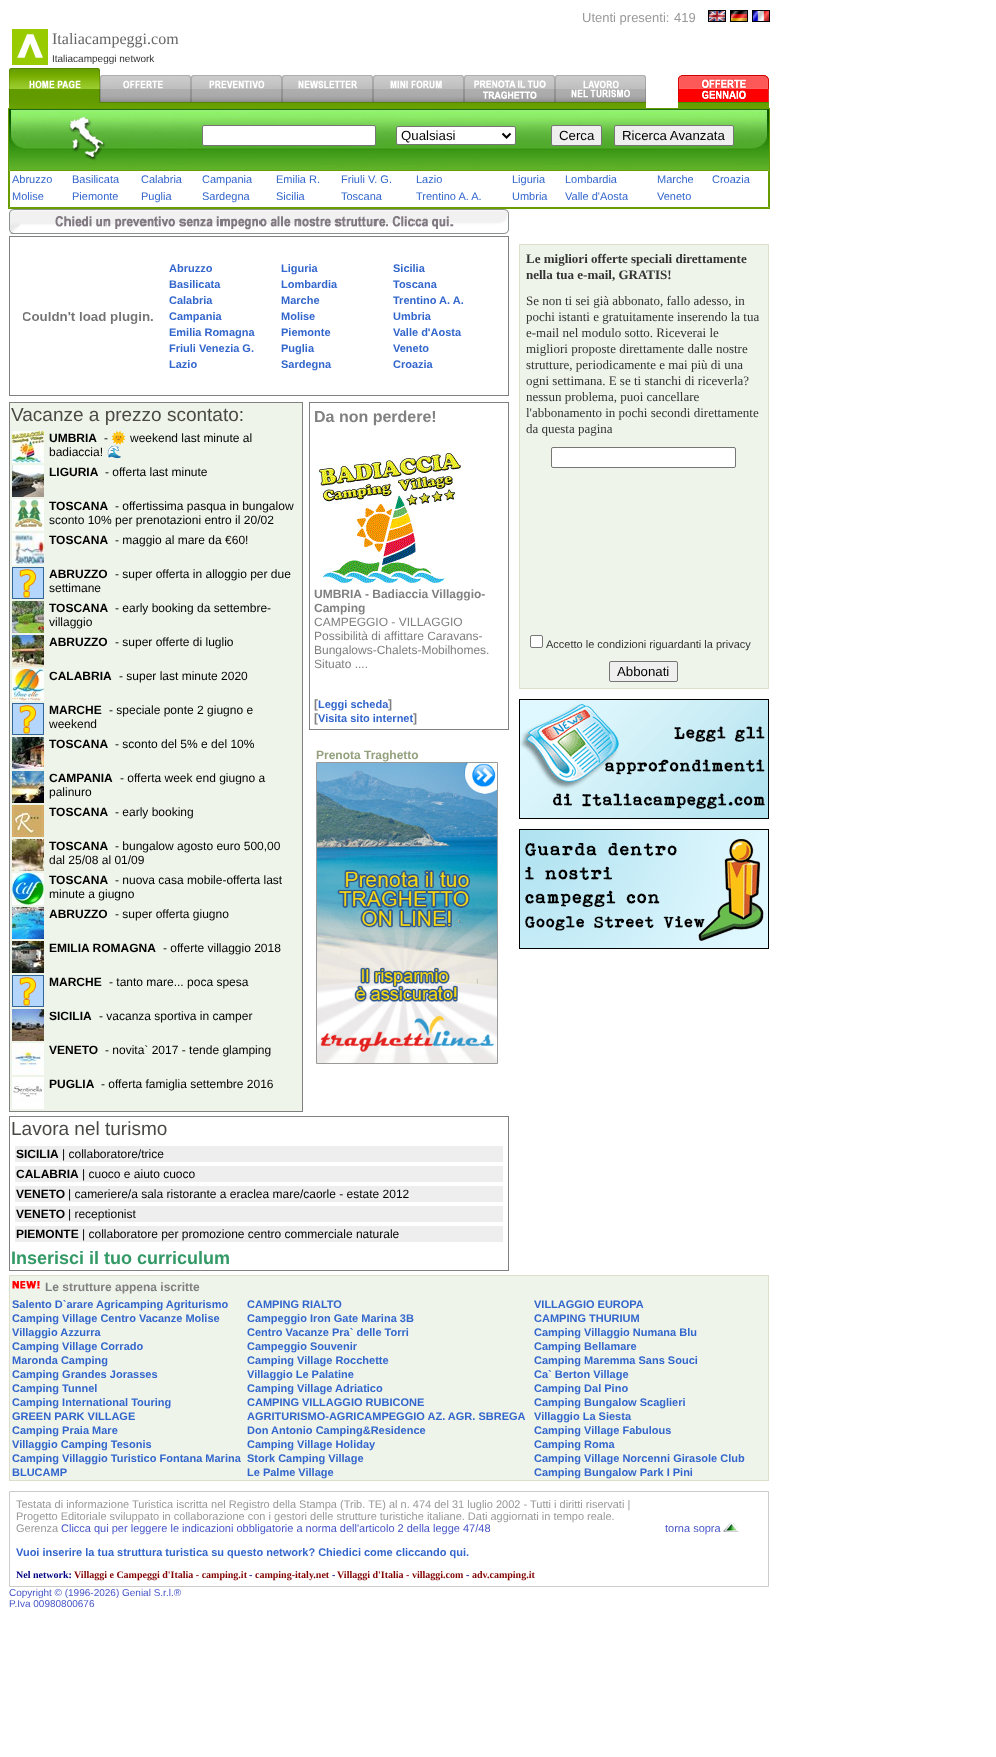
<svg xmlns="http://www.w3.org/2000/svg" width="996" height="1757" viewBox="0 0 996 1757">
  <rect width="100%" height="100%" fill="#fff"/>
  <image x="708" y="10" width="18" height="12" href="img/1.png"/>
  <image x="730" y="10" width="18" height="12" href="img/2.png"/>
  <image x="752" y="10" width="18" height="12" href="img/3.png"/>
  <image x="12" y="29" width="36" height="36" href="img/4.png"/>
  <image x="9" y="68" width="91" height="40" href="img/5.png"/>
  <image x="100" y="75" width="91" height="33" href="img/6.png"/>
  <image x="191" y="75" width="91" height="33" href="img/7.png"/>
  <image x="282" y="75" width="91" height="33" href="img/8.png"/>
  <image x="373" y="75" width="91" height="33" href="img/9.png"/>
  <image x="464" y="75" width="91" height="33" href="img/10.png"/>
  <image x="555" y="75" width="91" height="33" href="img/11.png"/>
  <image x="678" y="75" width="91" height="33" href="img/12.png"/>
  <path d="M8 108h762v1H8z" fill="#699c00"/>
  <path d="M769 108h1v101H769z" fill="#699c00"/>
  <path d="M8 208h762v1H8z" fill="#699c00"/>
  <path d="M8 108h1v101H8z" fill="#699c00"/>
  <image x="9" y="109" width="760" height="61" href="img/13.png"/>
  <image x="66" y="117" width="40" height="44" href="img/14.png"/>
  <rect x="202.5" y="125.5" width="173" height="20" rx="1.5" fill="#fff" stroke="#767676"/>
  <rect x="396.5" y="126.5" width="119" height="18" rx="1.5" fill="#fff" stroke="#767676"/>
  <path d="M502.5 133.5L506.5 137.5L510.5 133.5" fill="none" stroke="#000" stroke-width="2"/>
  <rect x="551.5" y="125.5" width="50" height="20" rx="1.5" fill="#efefef" stroke="#767676"/>
  <rect x="614.5" y="125.5" width="119" height="20" rx="1.5" fill="#efefef" stroke="#767676"/>
  <path d="M9.5 170.5h759v37H9.5z" fill="none" stroke="#699c00"/>
  <image x="9" y="209" width="500" height="25" href="img/15.png"/>
  <path d="M9 236h500v1H9z" fill="#808080"/>
  <path d="M508 236h1v160H508z" fill="#808080"/>
  <path d="M9 395h500v1H9z" fill="#808080"/>
  <path d="M9 236h1v160H9z" fill="#808080"/>
  <image x="23" y="312" width="130" height="12" href="img/16.png"/>
  <path d="M10 403h292v708H10z" fill="#eef4ea"/>
  <path d="M9 402h294v1H9z" fill="#808080"/>
  <path d="M302 402h1v710H302z" fill="#808080"/>
  <path d="M9 1111h294v1H9z" fill="#808080"/>
  <path d="M9 402h1v710H9z" fill="#808080"/>
  <image x="12" y="431" width="32" height="32" href="img/17.png"/>
  <image x="12" y="465" width="32" height="32" href="img/18.png"/>
  <image x="12" y="499" width="32" height="32" href="img/19.png"/>
  <image x="12" y="533" width="32" height="32" href="img/20.png"/>
  <image x="12" y="567" width="32" height="32" href="img/21.png"/>
  <image x="12" y="601" width="32" height="32" href="img/22.png"/>
  <image x="12" y="635" width="32" height="32" href="img/23.png"/>
  <image x="12" y="669" width="32" height="32" href="img/24.png"/>
  <image x="12" y="703" width="32" height="32" href="img/21.png"/>
  <image x="12" y="737" width="32" height="32" href="img/25.png"/>
  <image x="12" y="771" width="32" height="32" href="img/26.png"/>
  <image x="12" y="805" width="32" height="32" href="img/27.png"/>
  <image x="12" y="839" width="32" height="32" href="img/28.png"/>
  <image x="12" y="873" width="32" height="32" href="img/29.png"/>
  <image x="12" y="907" width="32" height="32" href="img/30.png"/>
  <image x="12" y="941" width="32" height="32" href="img/31.png"/>
  <image x="12" y="975" width="32" height="32" href="img/21.png"/>
  <image x="12" y="1009" width="32" height="32" href="img/32.png"/>
  <image x="12" y="1043" width="32" height="32" href="img/33.png"/>
  <image x="12" y="1077" width="32" height="32" href="img/34.png"/>
  <path d="M309 402h200v1H309z" fill="#808080"/>
  <path d="M508 402h1v328H508z" fill="#808080"/>
  <path d="M309 729h200v1H309z" fill="#808080"/>
  <path d="M309 402h1v328H309z" fill="#808080"/>
  <image x="319" y="453" width="142" height="130" href="img/35.png"/>
  <path d="M316.5 762.5h181v301H316.5z" fill="none" stroke="#999"/>
  <image x="317" y="763" width="180" height="300" href="img/36.png"/>
  <path d="M519.5 244.5h249v444H519.5z" fill="#eef4ea" stroke="#ddc"/>
  <rect x="551.5" y="447.5" width="184" height="20" rx="1.5" fill="#fff" stroke="#767676"/>
  <rect x="530.5" y="635.5" width="12" height="12" rx="1.5" fill="#fff" stroke="#767676"/>
  <rect x="609.5" y="661.5" width="68" height="20" rx="1.5" fill="#efefef" stroke="#767676"/>
  <image x="519" y="699" width="250" height="120" href="img/37.png"/>
  <image x="519" y="829" width="250" height="120" href="img/38.png"/>
  <path d="M9 1116h500v1H9z" fill="#808080"/>
  <path d="M508 1116h1v155H508z" fill="#808080"/>
  <path d="M9 1270h500v1H9z" fill="#808080"/>
  <path d="M9 1116h1v155H9z" fill="#808080"/>
  <path d="M15 1146h488v96H15z" fill="#eee"/>
  <path d="M11 1162h496v4H11z" fill="#fff"/>
  <path d="M11 1182h496v4H11z" fill="#fff"/>
  <path d="M11 1202h496v4H11z" fill="#fff"/>
  <path d="M11 1222h496v4H11z" fill="#fff"/>
  <path d="M10 1276h758v204H10z" fill="#eef4ea"/>
  <path d="M9 1275h760v1H9z" fill="#ddc"/>
  <path d="M768 1275h1v206H768z" fill="#ddc"/>
  <path d="M9 1480h760v1H9z" fill="#ddc"/>
  <path d="M9 1275h1v206H9z" fill="#ddc"/>
  <image x="12" y="1281" width="28" height="8" href="img/39.png"/>
  <path d="M9.5 1491.5h759v95H9.5z" fill="none" stroke="#ccc"/>
  <image x="723" y="1522" width="16" height="10" href="img/40.png"/>
  <g font-family="Liberation Sans" font-size="13" fill="#999">
    <text x="582" y="22">Utenti presenti:</text>
    <text x="674" y="22">419</text>
  </g>
  <text x="52" y="44" font-family="Liberation Serif" font-size="16" fill="#666">Italiacampeggi.com</text>
  <text x="52" y="62" font-family="Liberation Sans" font-size="10" fill="#333">Italiacampeggi network</text>
  <g font-family="Liberation Sans" font-size="13.25" fill="#000">
    <text x="401" y="140">Qualsiasi</text>
    <text x="559" y="140">Cerca</text>
    <text x="622" y="140">Ricerca Avanzata</text>
  </g>
  <g font-family="Liberation Sans" font-size="11" fill="#36c">
    <text x="12" y="183">Abruzzo</text>
    <text x="72" y="183">Basilicata</text>
    <text x="141" y="183">Calabria</text>
    <text x="202" y="183">Campania</text>
    <text x="276" y="183">Emilia R.</text>
    <text x="341" y="183">Friuli V. G.</text>
    <text x="416" y="183">Lazio</text>
    <text x="512" y="183">Liguria</text>
    <text x="565" y="183">Lombardia</text>
    <text x="657" y="183">Marche</text>
    <text x="712" y="183">Croazia</text>
    <text x="12" y="200">Molise</text>
    <text x="72" y="200">Piemonte</text>
    <text x="141" y="200">Puglia</text>
    <text x="202" y="200">Sardegna</text>
    <text x="276" y="200">Sicilia</text>
    <text x="341" y="200">Toscana</text>
    <text x="416" y="200">Trentino A. A.</text>
    <text x="512" y="200">Umbria</text>
    <text x="565" y="200">Valle d'Aosta</text>
    <text x="657" y="200">Veneto</text>
  </g>
  <g font-family="Liberation Sans" font-size="11" font-weight="bold" fill="#36c">
    <text x="169" y="272">Abruzzo</text>
    <text x="281" y="272">Liguria</text>
    <text x="393" y="272">Sicilia</text>
    <text x="169" y="288">Basilicata</text>
    <text x="281" y="288">Lombardia</text>
    <text x="393" y="288">Toscana</text>
    <text x="169" y="304">Calabria</text>
    <text x="281" y="304">Marche</text>
    <text x="393" y="304">Trentino A. A.</text>
    <text x="169" y="320">Campania</text>
    <text x="281" y="320">Molise</text>
    <text x="393" y="320">Umbria</text>
    <text x="169" y="336">Emilia Romagna</text>
    <text x="281" y="336">Piemonte</text>
    <text x="393" y="336">Valle d'Aosta</text>
    <text x="169" y="352">Friuli Venezia G.</text>
    <text x="281" y="352">Puglia</text>
    <text x="393" y="352">Veneto</text>
    <text x="169" y="368">Lazio</text>
    <text x="281" y="368">Sardegna</text>
    <text x="393" y="368">Croazia</text>
  </g>
  <text x="11" y="421" font-family="Liberation Sans" font-size="19" fill="#4a4945">Vacanze a prezzo scontato:</text>
  <text x="49" y="442" font-family="Liberation Sans" font-size="12" font-weight="bold" fill="#000">UMBRIA</text>
  <text x="104" y="442" font-family="Liberation Sans" font-size="12" fill="#000">-</text>
  <text x="111" y="442" font-family="Noto Color Emoji" font-size="12" fill="#000">🌞</text>
  <g font-family="Liberation Sans" font-size="12" fill="#000">
    <text x="130" y="442">weekend last minute al</text>
    <text x="49" y="456">badiaccia!</text>
  </g>
  <text x="107" y="456" font-family="Noto Color Emoji" font-size="12" fill="#000">🌊</text>
  <text x="49" y="476" font-family="Liberation Sans" font-size="12" font-weight="bold" fill="#000">LIGURIA</text>
  <text x="105" y="476" font-family="Liberation Sans" font-size="12" fill="#000">- offerta last minute</text>
  <text x="49" y="510" font-family="Liberation Sans" font-size="12" font-weight="bold" fill="#000">TOSCANA</text>
  <g font-family="Liberation Sans" font-size="12" fill="#000">
    <text x="115" y="510">- offertissima pasqua in bungalow</text>
    <text x="49" y="524">sconto 10% per prenotazioni entro il 20/02</text>
  </g>
  <text x="49" y="544" font-family="Liberation Sans" font-size="12" font-weight="bold" fill="#000">TOSCANA</text>
  <text x="115" y="544" font-family="Liberation Sans" font-size="12" fill="#000">- maggio al mare da €60!</text>
  <text x="49" y="578" font-family="Liberation Sans" font-size="12" font-weight="bold" fill="#000">ABRUZZO</text>
  <g font-family="Liberation Sans" font-size="12" fill="#000">
    <text x="115" y="578">- super offerta in alloggio per due</text>
    <text x="49" y="592">settimane</text>
  </g>
  <text x="49" y="612" font-family="Liberation Sans" font-size="12" font-weight="bold" fill="#000">TOSCANA</text>
  <g font-family="Liberation Sans" font-size="12" fill="#000">
    <text x="115" y="612">- early booking da settembre-</text>
    <text x="49" y="626">villaggio</text>
  </g>
  <text x="49" y="646" font-family="Liberation Sans" font-size="12" font-weight="bold" fill="#000">ABRUZZO</text>
  <text x="115" y="646" font-family="Liberation Sans" font-size="12" fill="#000">- super offerte di luglio</text>
  <text x="49" y="680" font-family="Liberation Sans" font-size="12" font-weight="bold" fill="#000">CALABRIA</text>
  <text x="119" y="680" font-family="Liberation Sans" font-size="12" fill="#000">- super last minute 2020</text>
  <text x="49" y="714" font-family="Liberation Sans" font-size="12" font-weight="bold" fill="#000">MARCHE</text>
  <g font-family="Liberation Sans" font-size="12" fill="#000">
    <text x="109" y="714">- speciale ponte 2 giugno e</text>
    <text x="49" y="728">weekend</text>
  </g>
  <text x="49" y="748" font-family="Liberation Sans" font-size="12" font-weight="bold" fill="#000">TOSCANA</text>
  <text x="115" y="748" font-family="Liberation Sans" font-size="12" fill="#000">- sconto del 5% e del 10%</text>
  <text x="49" y="782" font-family="Liberation Sans" font-size="12" font-weight="bold" fill="#000">CAMPANIA</text>
  <g font-family="Liberation Sans" font-size="12" fill="#000">
    <text x="120" y="782">- offerta week end giugno a</text>
    <text x="49" y="796">palinuro</text>
  </g>
  <text x="49" y="816" font-family="Liberation Sans" font-size="12" font-weight="bold" fill="#000">TOSCANA</text>
  <text x="115" y="816" font-family="Liberation Sans" font-size="12" fill="#000">- early booking</text>
  <text x="49" y="850" font-family="Liberation Sans" font-size="12" font-weight="bold" fill="#000">TOSCANA</text>
  <g font-family="Liberation Sans" font-size="12" fill="#000">
    <text x="115" y="850">- bungalow agosto euro 500,00</text>
    <text x="49" y="864">dal 25/08 al 01/09</text>
  </g>
  <text x="49" y="884" font-family="Liberation Sans" font-size="12" font-weight="bold" fill="#000">TOSCANA</text>
  <g font-family="Liberation Sans" font-size="12" fill="#000">
    <text x="115" y="884">- nuova casa mobile-offerta last</text>
    <text x="49" y="898">minute a giugno</text>
  </g>
  <text x="49" y="918" font-family="Liberation Sans" font-size="12" font-weight="bold" fill="#000">ABRUZZO</text>
  <text x="115" y="918" font-family="Liberation Sans" font-size="12" fill="#000">- super offerta giugno</text>
  <text x="49" y="952" font-family="Liberation Sans" font-size="12" font-weight="bold" fill="#000">EMILIA ROMAGNA</text>
  <text x="163" y="952" font-family="Liberation Sans" font-size="12" fill="#000">- offerte villaggio 2018</text>
  <text x="49" y="986" font-family="Liberation Sans" font-size="12" font-weight="bold" fill="#000">MARCHE</text>
  <text x="109" y="986" font-family="Liberation Sans" font-size="12" fill="#000">- tanto mare... poca spesa</text>
  <text x="49" y="1020" font-family="Liberation Sans" font-size="12" font-weight="bold" fill="#000">SICILIA</text>
  <text x="99" y="1020" font-family="Liberation Sans" font-size="12" fill="#000">- vacanza sportiva in camper</text>
  <text x="49" y="1054" font-family="Liberation Sans" font-size="12" font-weight="bold" fill="#000">VENETO</text>
  <text x="105" y="1054" font-family="Liberation Sans" font-size="12" fill="#000">- novita` 2017 - tende glamping</text>
  <text x="49" y="1088" font-family="Liberation Sans" font-size="12" font-weight="bold" fill="#000">PUGLIA</text>
  <text x="101" y="1088" font-family="Liberation Sans" font-size="12" fill="#000">- offerta famiglia settembre 2016</text>
  <text x="314" y="422" font-family="Liberation Sans" font-size="16" font-weight="bold" fill="#808080">Da non perdere!</text>
  <g font-family="Liberation Sans" font-size="12" font-weight="bold" fill="#808080">
    <text x="314" y="598">UMBRIA - Badiaccia Villaggio-</text>
    <text x="314" y="612">Camping</text>
  </g>
  <g font-family="Liberation Sans" font-size="12" fill="#808080">
    <text x="314" y="626">CAMPEGGIO - VILLAGGIO</text>
    <text x="314" y="640">Possibilità di affittare Caravans-</text>
    <text x="314" y="654">Bungalows-Chalets-Mobilhomes.</text>
    <text x="314" y="668">Situato ....</text>
  </g>
  <text x="314" y="708" font-family="Liberation Sans" font-size="12" font-weight="bold" fill="#808080">[</text>
  <text x="318" y="708" font-family="Liberation Sans" font-size="11" font-weight="bold" fill="#36c">Leggi scheda</text>
  <g font-family="Liberation Sans" font-size="12" font-weight="bold" fill="#808080">
    <text x="388" y="708">]</text>
    <text x="314" y="722">[</text>
  </g>
  <text x="318" y="722" font-family="Liberation Sans" font-size="11" font-weight="bold" fill="#36c">Visita sito internet</text>
  <text x="413" y="722" font-family="Liberation Sans" font-size="12" font-weight="bold" fill="#808080">]</text>
  <text x="316" y="759" font-family="Liberation Sans" font-size="12" font-weight="bold" fill="#93a17e">Prenota Traghetto</text>
  <g font-family="Liberation Serif" font-size="13" font-weight="bold" fill="#333">
    <text x="526" y="263">Le migliori offerte speciali direttamente</text>
    <text x="526" y="279">nella tua e-mail, GRATIS!</text>
  </g>
  <g font-family="Liberation Serif" font-size="13" fill="#333">
    <text x="526" y="305">Se non ti sei già abbonato, fallo adesso, in</text>
    <text x="526" y="321">pochi istanti e gratuitamente inserendo la tua</text>
    <text x="526" y="337">e-mail nel modulo sotto. Riceverai le</text>
    <text x="526" y="353">migliori proposte direttamente dalle nostre</text>
    <text x="526" y="369">strutture, periodicamente e mai più di una</text>
    <text x="526" y="385">ogni settimana. E se ti stanchi di riceverla?</text>
    <text x="526" y="401">nessun problema, puoi cancellare</text>
    <text x="526" y="417">l'abbonamento in pochi secondi direttamente</text>
    <text x="526" y="433">da questa pagina</text>
  </g>
  <text x="546" y="648" font-family="Liberation Sans" font-size="11" fill="#333">Accetto le condizioni riguardanti la privacy</text>
  <text x="617" y="676" font-family="Liberation Sans" font-size="13.25" fill="#000">Abbonati</text>
  <text x="11" y="1135" font-family="Liberation Sans" font-size="19" fill="#4a4945">Lavora nel turismo</text>
  <text x="16" y="1158" font-family="Liberation Sans" font-size="12" font-weight="bold" fill="#000">SICILIA</text>
  <text x="62" y="1158" font-family="Liberation Sans" font-size="12" fill="#000">| collaboratore/trice</text>
  <text x="16" y="1178" font-family="Liberation Sans" font-size="12" font-weight="bold" fill="#000">CALABRIA</text>
  <text x="82" y="1178" font-family="Liberation Sans" font-size="12" fill="#000">| cuoco e aiuto cuoco</text>
  <text x="16" y="1198" font-family="Liberation Sans" font-size="12" font-weight="bold" fill="#000">VENETO</text>
  <text x="68" y="1198" font-family="Liberation Sans" font-size="12" fill="#000">| cameriere/a sala ristorante a eraclea mare/caorle - estate 2012</text>
  <text x="16" y="1218" font-family="Liberation Sans" font-size="12" font-weight="bold" fill="#000">VENETO</text>
  <text x="68" y="1218" font-family="Liberation Sans" font-size="12" fill="#000">| receptionist</text>
  <text x="16" y="1238" font-family="Liberation Sans" font-size="12" font-weight="bold" fill="#000">PIEMONTE</text>
  <text x="82" y="1238" font-family="Liberation Sans" font-size="12" fill="#000">| collaboratore per promozione centro commerciale naturale</text>
  <text x="11" y="1264" font-family="Liberation Sans" font-size="18" font-weight="bold" fill="#396">Inserisci il tuo curriculum</text>
  <text x="45" y="1291" font-family="Liberation Sans" font-size="12" font-weight="bold" fill="#808080">Le strutture appena iscritte</text>
  <g font-family="Liberation Sans" font-size="11" font-weight="bold" fill="#36c">
    <text x="12" y="1308">Salento D`arare Agricamping Agriturismo</text>
    <text x="247" y="1308">CAMPING RIALTO</text>
    <text x="534" y="1308">VILLAGGIO EUROPA</text>
    <text x="12" y="1322">Camping Village Centro Vacanze Molise</text>
    <text x="247" y="1322">Campeggio Iron Gate Marina 3B</text>
    <text x="534" y="1322">CAMPING THURIUM</text>
    <text x="12" y="1336">Villaggio Azzurra</text>
    <text x="247" y="1336">Centro Vacanze Pra` delle Torri</text>
    <text x="534" y="1336">Camping Villaggio Numana Blu</text>
    <text x="12" y="1350">Camping Village Corrado</text>
    <text x="247" y="1350">Campeggio Souvenir</text>
    <text x="534" y="1350">Camping Bellamare</text>
    <text x="12" y="1364">Maronda Camping</text>
    <text x="247" y="1364">Camping Village Rocchette</text>
    <text x="534" y="1364">Camping Maremma Sans Souci</text>
    <text x="12" y="1378">Camping Grandes Jorasses</text>
    <text x="247" y="1378">Villaggio Le Palatine</text>
    <text x="534" y="1378">Ca` Berton Village</text>
    <text x="12" y="1392">Camping Tunnel</text>
    <text x="247" y="1392">Camping Village Adriatico</text>
    <text x="534" y="1392">Camping Dal Pino</text>
    <text x="12" y="1406">Camping International Touring</text>
    <text x="247" y="1406">CAMPING VILLAGGIO RUBICONE</text>
    <text x="534" y="1406">Camping Bungalow Scaglieri</text>
    <text x="12" y="1420">GREEN PARK VILLAGE</text>
    <text x="247" y="1420">AGRITURISMO-AGRICAMPEGGIO AZ. AGR. SBREGA</text>
    <text x="534" y="1420">Villaggio La Siesta</text>
    <text x="12" y="1434">Camping Praia Mare</text>
    <text x="247" y="1434">Don Antonio Camping&amp;Residence</text>
    <text x="534" y="1434">Camping Village Fabulous</text>
    <text x="12" y="1448">Villaggio Camping Tesonis</text>
    <text x="247" y="1448">Camping Village Holiday</text>
    <text x="534" y="1448">Camping Roma</text>
    <text x="12" y="1462">Camping Villaggio Turistico Fontana Marina</text>
    <text x="247" y="1462">Stork Camping Village</text>
    <text x="534" y="1462">Camping Village Norcenni Girasole Club</text>
    <text x="12" y="1476">BLUCAMP</text>
    <text x="247" y="1476">Le Palme Village</text>
    <text x="534" y="1476">Camping Bungalow Park I Pini</text>
  </g>
  <g font-family="Liberation Sans" font-size="11" fill="#999">
    <text x="16" y="1508">Testata di informazione Turistica iscritta nel Registro della Stampa (Trib. TE) al n. 474 del 31 luglio 2002 - Tutti i diritti riservati |</text>
    <text x="16" y="1520">Progetto Editoriale sviluppato in collaborazione con i gestori delle strutture turistiche italiane. Dati aggiornati in tempo reale.</text>
    <text x="16" y="1532">Gerenza</text>
  </g>
  <text x="61" y="1532" font-family="Liberation Sans" font-size="11" fill="#4555c7">Clicca qui per leggere le indicazioni obbligatorie a norma dell'articolo 2 della legge 47/48</text>
  <text x="16" y="1556" font-family="Liberation Sans" font-size="11" font-weight="bold" fill="#36c">Vuoi inserire la tua struttura turistica su questo network? Chiedici come cliccando qui.</text>
  <text x="665" y="1532" font-family="Liberation Sans" font-size="11" fill="#4555c7">torna sopra</text>
  <text x="16" y="1578" font-family="Liberation Serif" font-size="10" font-weight="bold" fill="#000080">Nel network:</text>
  <text x="74" y="1578" font-family="Liberation Serif" font-size="10" font-weight="bold" fill="#800000">Villaggi e Campeggi d'Italia - camping.it</text>
  <text x="249" y="1578" font-family="Liberation Serif" font-size="10" font-weight="bold" fill="#000080">-</text>
  <text x="255" y="1578" font-family="Liberation Serif" font-size="10" font-weight="bold" fill="#800000">camping-italy.net</text>
  <text x="332" y="1578" font-family="Liberation Serif" font-size="10" font-weight="bold" fill="#000080">-</text>
  <text x="337" y="1578" font-family="Liberation Serif" font-size="10" font-weight="bold" fill="#800000">Villaggi d'Italia - villaggi.com</text>
  <text x="466" y="1578" font-family="Liberation Serif" font-size="10" font-weight="bold" fill="#000080">-</text>
  <text x="472" y="1578" font-family="Liberation Serif" font-size="10" font-weight="bold" fill="#800000">adv.camping.it</text>
  <g font-family="Liberation Sans" font-size="10" fill="#4555c7">
    <text x="9" y="1596">Copyright © (1996-2026) Genial S.r.l.®</text>
    <text x="9" y="1607">P.Iva 00980800676</text>
  </g>
</svg>
